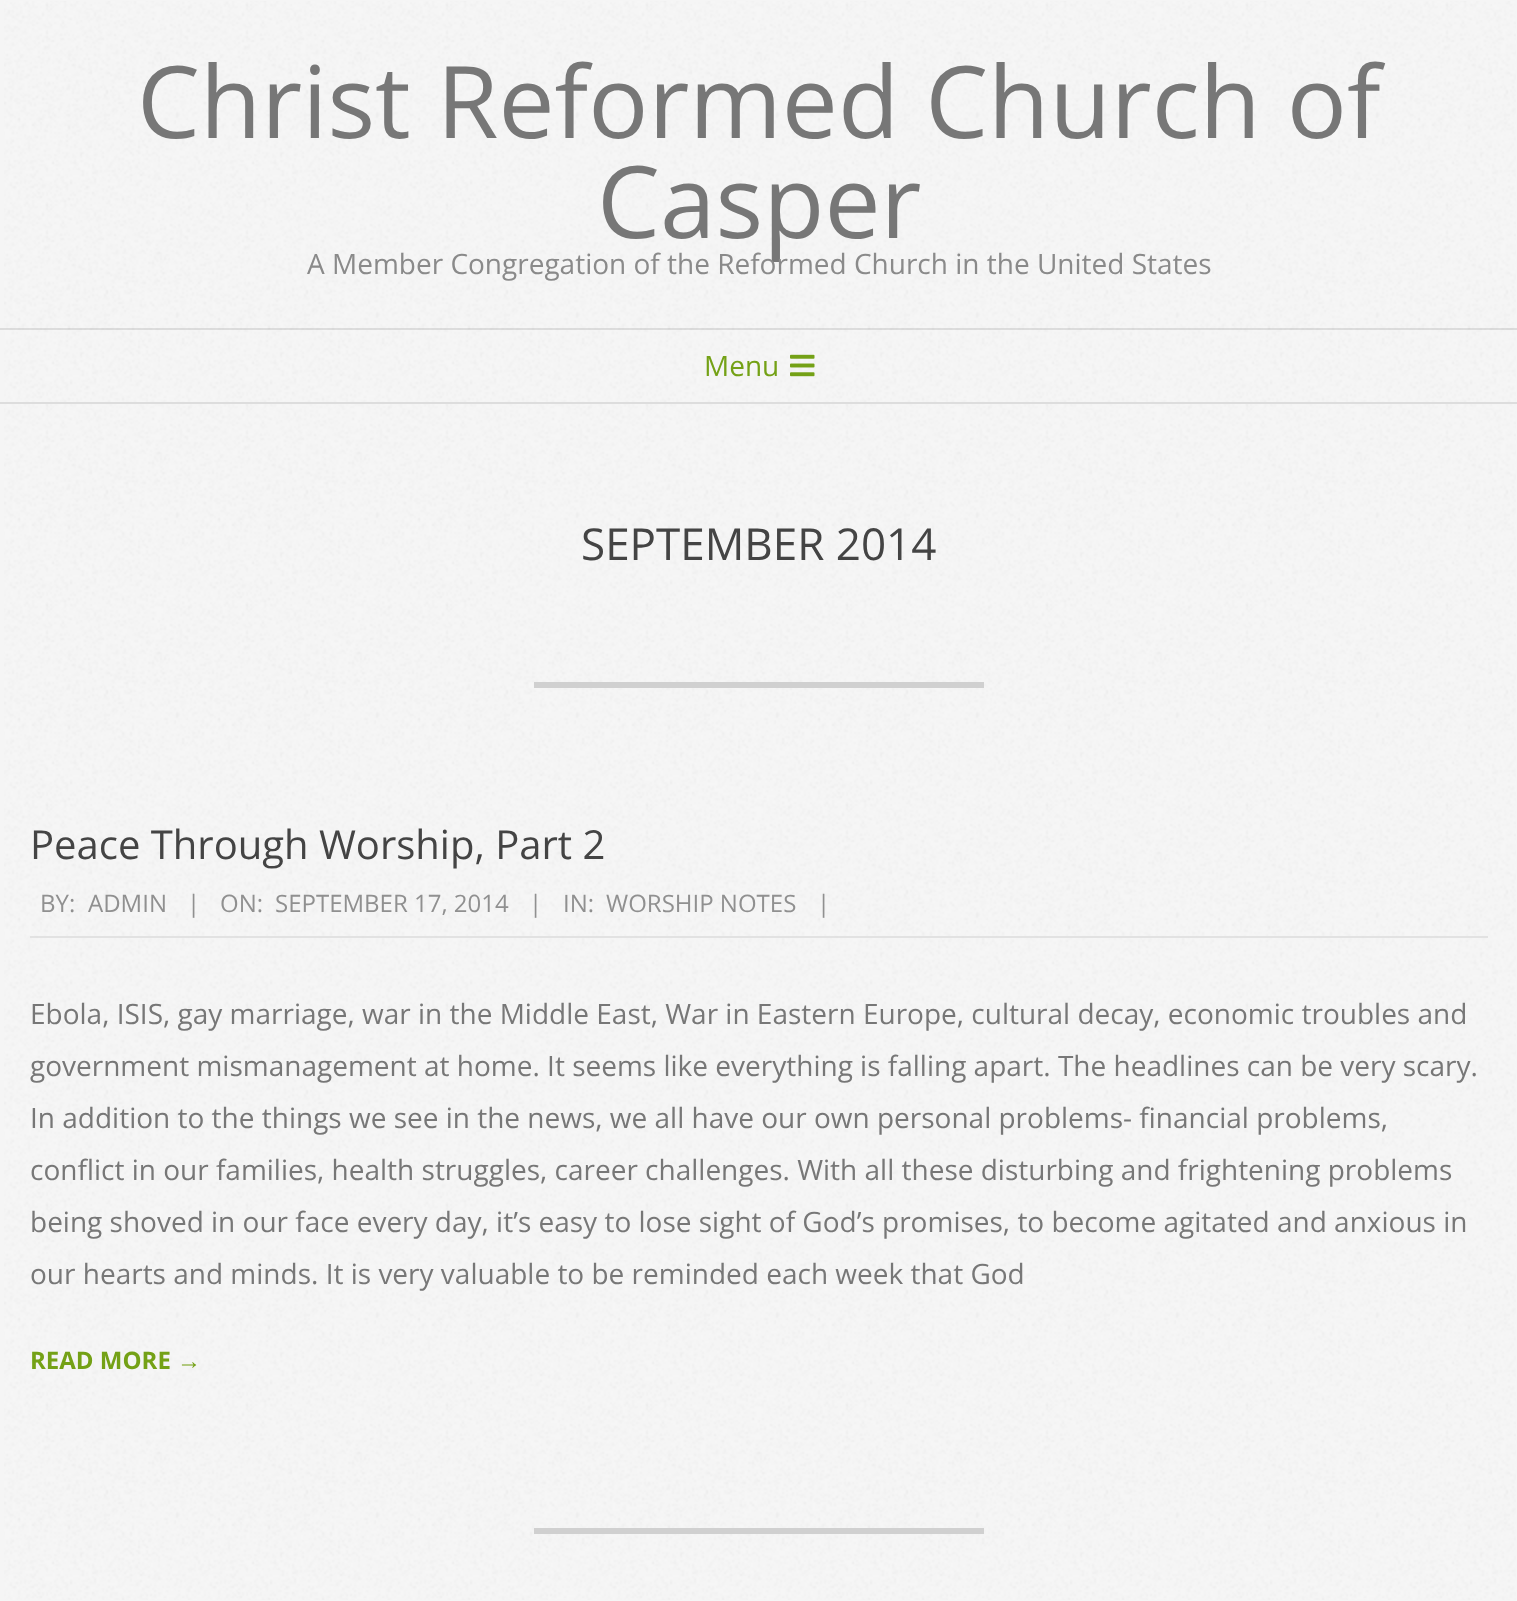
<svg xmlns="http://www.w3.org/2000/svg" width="1517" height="1601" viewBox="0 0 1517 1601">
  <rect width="100%" height="100%" fill="#f5f5f5"/>
  <image x="4" y="1" width="1512" height="1599" href="img/1.png"/>
  <path d="M0 328h1517v2H0z" fill="#0000001a"/>
  <image x="790" y="354" width="25" height="23" href="img/2.png"/>
  <path d="M0 402h1517v2H0z" fill="#ddd"/>
  <path d="M534 682h450v6H534z" fill="#d0d0d0"/>
  <path d="M30 936h1458v2H30z" fill="#ddddddcc"/>
  <path d="M534 1528h450v6H534z" fill="#d0d0d0"/>
  <g font-family="Open Sans" font-size="100" fill="#777">
    <text x="137" y="138">Christ Reformed Church of</text>
    <text x="597" y="238">Casper</text>
  </g>
  <text x="307" y="274" font-family="Open Sans" font-size="28" fill="#8a8a8a">A Member Congregation of the Reformed Church in the United States</text>
  <text x="704" y="376" font-family="Open Sans" font-size="28" fill="#74a116">Menu</text>
  <text x="581" y="560" font-family="Open Sans" font-size="44" fill="#444">SEPTEMBER 2014</text>
  <text x="30" y="859" font-family="Open Sans" font-size="40" fill="#444">Peace Through Worship, Part 2</text>
  <g font-family="Open Sans" font-size="24" fill="#909090">
    <text x="40" y="912">BY:</text>
    <text x="88" y="912">ADMIN</text>
    <text x="187" y="912">|</text>
    <text x="220" y="912">ON:</text>
    <text x="275" y="912">SEPTEMBER 17, 2014</text>
    <text x="529" y="912">|</text>
    <text x="563" y="912">IN:</text>
    <text x="606" y="912">WORSHIP NOTES</text>
    <text x="817" y="912">|</text>
  </g>
  <g font-family="Open Sans" font-size="28" fill="#777">
    <text x="30" y="1024">Ebola, ISIS, gay marriage, war in the Middle East, War in Eastern Europe, cultural decay, economic troubles and</text>
    <text x="30" y="1076">government mismanagement at home. It seems like everything is falling apart. The headlines can be very scary.</text>
    <text x="30" y="1128">In addition to the things we see in the news, we all have our own personal problems- financial problems,</text>
    <text x="30" y="1180">conflict in our families, health struggles, career challenges. With all these disturbing and frightening problems</text>
    <text x="30" y="1232">being shoved in our face every day, it’s easy to lose sight of God’s promises, to become agitated and anxious in</text>
    <text x="30" y="1284">our hearts and minds. It is very valuable to be reminded each week that God</text>
  </g>
  <text x="30" y="1369" font-family="Open Sans" font-size="24" font-weight="bold" fill="#74a116">READ MORE</text>
  <text x="177" y="1369" font-family="Liberation Sans" font-size="24" font-weight="bold" fill="#74a116">→</text>
</svg>
